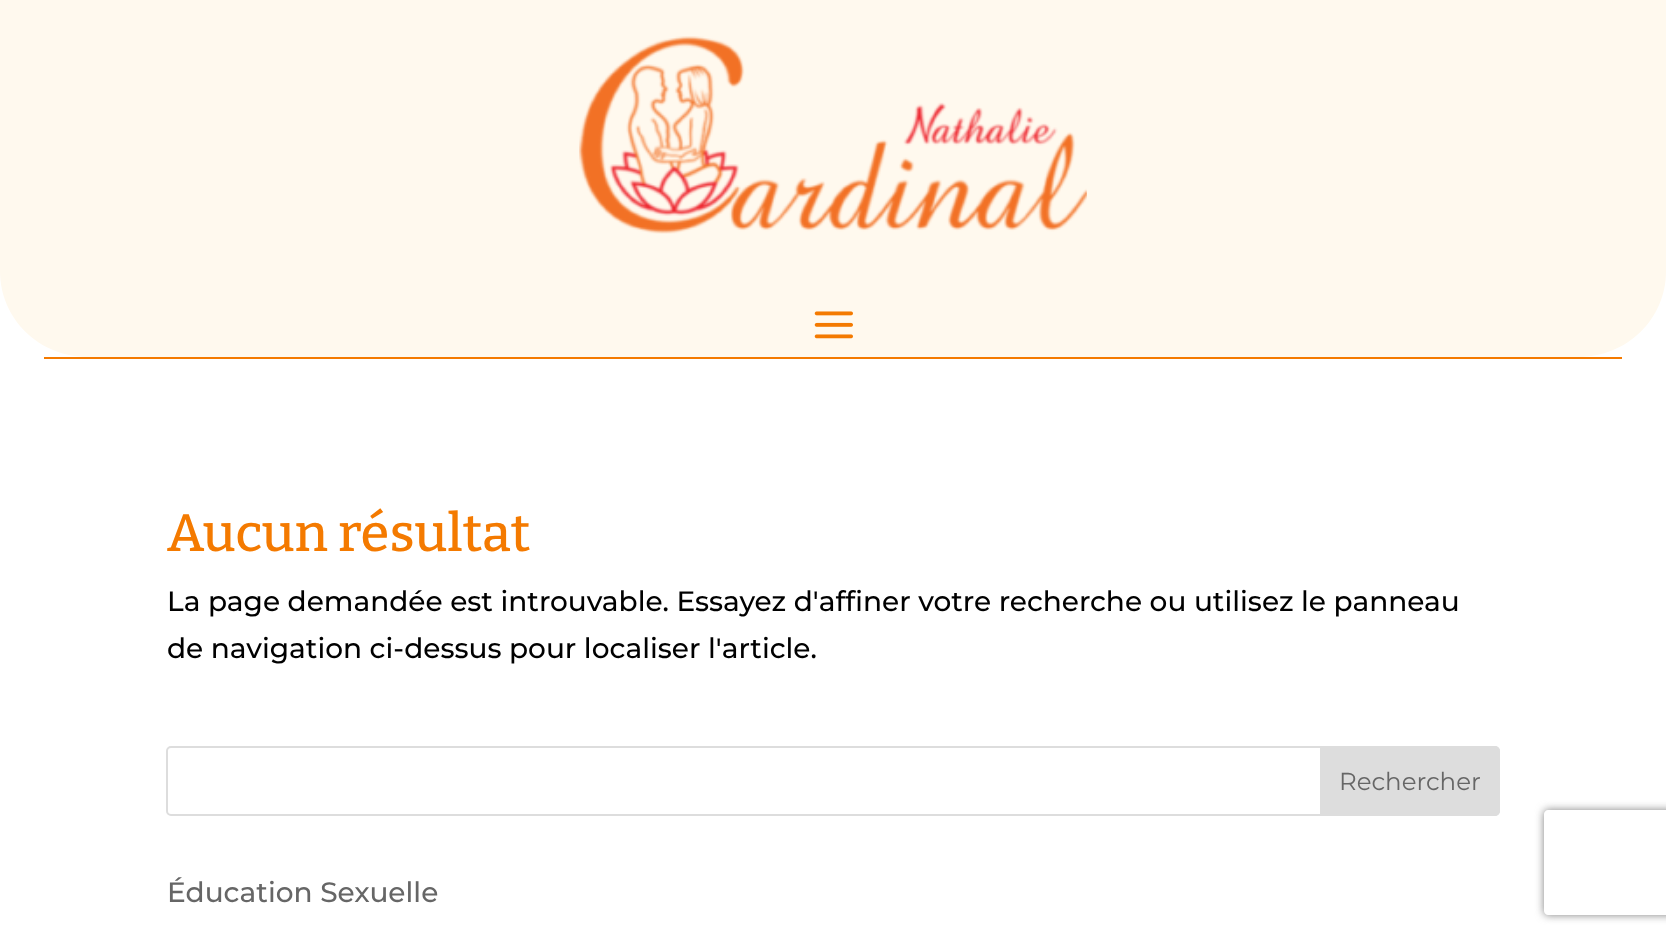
<svg xmlns="http://www.w3.org/2000/svg" width="1666" height="939" viewBox="0 0 1666 939">
  <defs>
    <clipPath id="clip1"><path d="M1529 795H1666V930H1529ZM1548 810H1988C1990 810 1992 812 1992 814V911C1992 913 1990 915 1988 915H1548C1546 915 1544 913 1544 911V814C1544 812 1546 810 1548 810Z" clip-rule="evenodd"/></clipPath>
  </defs>
  <rect width="100%" height="100%" fill="#fff"/>
  <path d="M0 0H1666V271C1666 319 1627 357 1578 357H88C39 357 0 319 0 271Z" fill="#fff9ee"/>
  <path d="M44 357h1578v2H44z" fill="#f47a00"/>
  <image x="579" y="36" width="508" height="198" href="img/1.png"/>
  <image x="814" y="311" width="39" height="28" href="img/2.png"/>
  <rect x="167" y="747" width="1332" height="68" rx="4" fill="none" stroke="#ddd" stroke-width="2"/>
  <path d="M1321 747H1495C1497 747 1499 749 1499 751V811C1499 813 1497 815 1495 815H1321Z" fill="#ddd" stroke="#ddd" stroke-width="2"/>
  <g clip-path="url(#clip1)">
    <rect x="1544" y="810" width="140" height="105" rx="4" fill="#808080" filter="blur(4.5px)"/>
  </g>
  <text x="167" y="551" font-family="Bitter" font-size="52.5" font-weight="500" fill="#f47a00">Aucun résultat</text>
  <g font-family="Montserrat" font-size="28" font-weight="500" fill="#000">
    <text x="167" y="611">La page demandée est introuvable. Essayez d'affiner votre recherche ou utilisez le panneau</text>
    <text x="167" y="658">de navigation ci-dessus pour localiser l'article.</text>
  </g>
  <text x="1339" y="790" font-family="Montserrat" font-size="24.5" fill="#666">Rechercher</text>
  <text x="167" y="902" font-family="Montserrat" font-size="28" font-weight="500" fill="#666">Éducation Sexuelle</text>
</svg>
